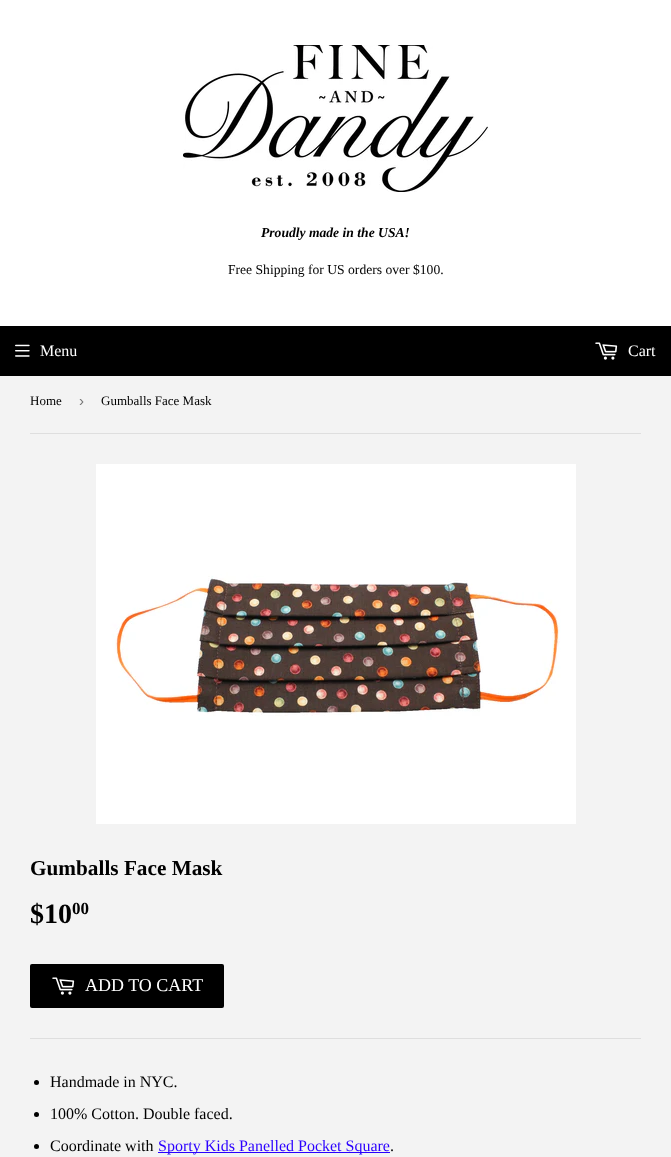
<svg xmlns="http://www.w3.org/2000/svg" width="671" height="1157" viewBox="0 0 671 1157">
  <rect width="100%" height="100%" fill="#f3f3f3"/>
  <path d="M0 0h671v326H0z" fill="#fff"/>
  <image x="183" y="45" width="305" height="147" href="img/1.png"/>
  <path d="M0 326h671v50H0z" fill="#000"/>
  <image x="15" y="344" width="15" height="13" href="img/2.png"/>
  <image x="595" y="342" width="23" height="18" href="img/3.png"/>
  <path d="M30 433h611v1H30z" fill="#dedede"/>
  <image x="96" y="464" width="480" height="360" href="img/4.png"/>
  <rect x="30" y="964" width="194" height="44" rx="2" fill="#000"/>
  <image x="52" y="977" width="23" height="18" href="img/3.png"/>
  <path d="M30 1038h611v1H30z" fill="#dedede"/>
  <circle cx="36.5" cy="1082.5" r="2.5" fill="#000"/>
  <circle cx="36.5" cy="1114.5" r="2.5" fill="#000"/>
  <circle cx="36.5" cy="1146.5" r="2.5" fill="#000"/>
  <path d="M158 1152h232v1H158z" fill="#2b00ff"/>
  <text x="261" y="237" font-family="Liberation Serif" font-size="13.6" font-weight="bold" font-style="italic" fill="#000">Proudly made in the USA!</text>
  <text x="228" y="274" font-family="Liberation Serif" font-size="13.6" fill="#000">Free Shipping for US orders over $100.</text>
  <g font-family="Liberation Serif" font-size="16" fill="#fff">
    <text x="40" y="356">Menu</text>
    <text x="628" y="356">Cart</text>
  </g>
  <text x="30" y="405" font-family="Liberation Serif" font-size="13" fill="#000">Home</text>
  <text x="79" y="406" font-family="Liberation Sans" font-size="15" fill="#767676">›</text>
  <text x="101" y="405" font-family="Liberation Serif" font-size="13" fill="#000">Gumballs Face Mask</text>
  <text x="30" y="875" font-family="Liberation Serif" font-size="21.25" font-weight="bold" fill="#000">Gumballs Face Mask</text>
  <text x="30" y="923" font-family="Liberation Serif" font-size="28" font-weight="bold" fill="#000">$10</text>
  <text x="72" y="914" font-family="Liberation Serif" font-size="17" font-weight="bold" fill="#000">00</text>
  <text x="85" y="991" font-family="Liberation Serif" font-size="18" fill="#fff">ADD TO CART</text>
  <g font-family="Liberation Serif" font-size="16" fill="#000">
    <text x="50" y="1087">Handmade in NYC.</text>
    <text x="50" y="1119">100% Cotton. Double faced.</text>
    <text x="50" y="1151">Coordinate with</text>
  </g>
  <text x="158" y="1151" font-family="Liberation Serif" font-size="16" fill="#2b00ff">Sporty Kids Panelled Pocket Square</text>
  <text x="390" y="1151" font-family="Liberation Serif" font-size="16" fill="#000">.</text>
</svg>
